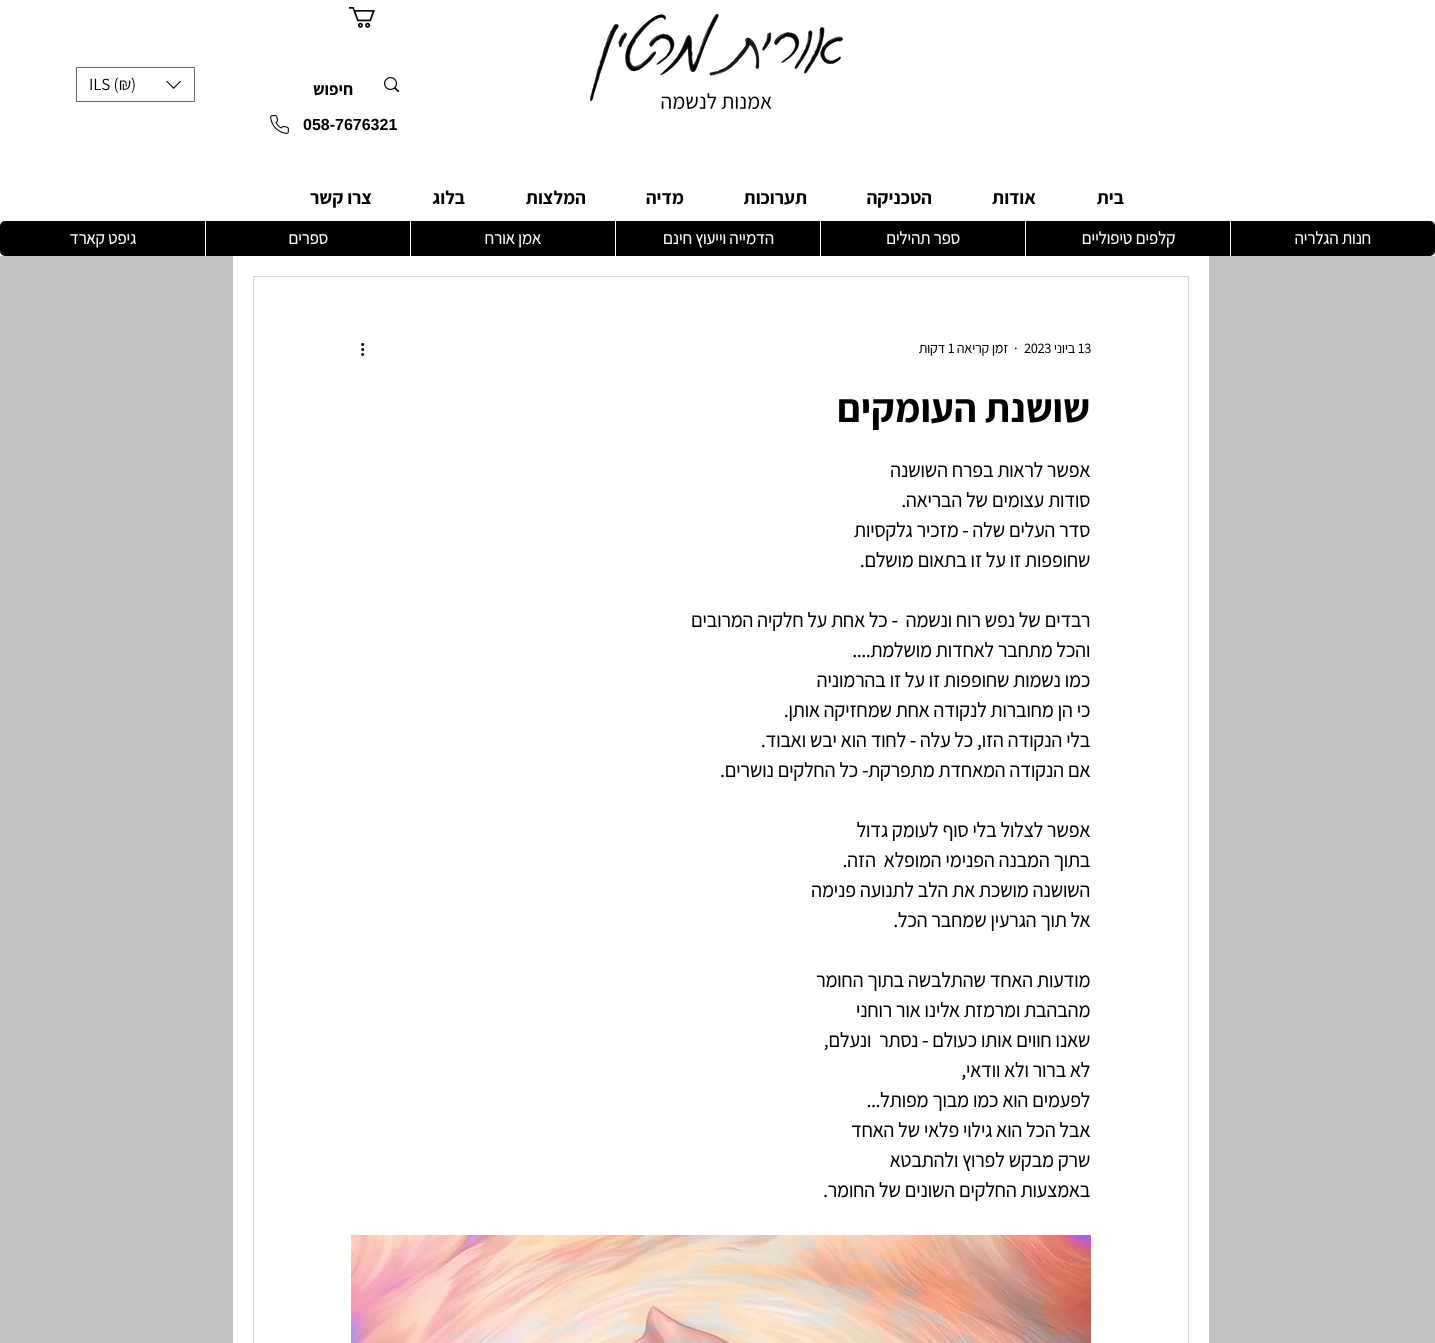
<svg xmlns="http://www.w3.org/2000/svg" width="1435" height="1343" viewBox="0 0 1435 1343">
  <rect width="100%" height="100%" fill="#c2c2c2"/>
  <path d="M0 0h1435v256H0z" fill="#fff"/>
  <image x="590" y="14" width="253" height="95" href="img/1.png"/>
  <image x="349" y="7" width="26" height="21" href="img/2.png"/>
  <image x="384" y="77" width="16" height="15" href="img/3.png"/>
  <path d="M76.5 67.5h118v34H76.5z" fill="none" stroke="#666"/>
  <image x="166" y="80" width="16" height="9" href="img/4.png"/>
  <image x="270" y="115" width="19" height="19" href="img/5.png"/>
  <rect y="221" width="1435" height="35" rx="5" fill="#000"/>
  <path d="M1230 221h1v35H1230z" fill="#fff"/>
  <path d="M1025 221h1v35H1025z" fill="#fff"/>
  <path d="M820 221h1v35H820z" fill="#fff"/>
  <path d="M615 221h1v35H615z" fill="#fff"/>
  <path d="M410 221h1v35H410z" fill="#fff"/>
  <path d="M205 221h1v35H205z" fill="#fff"/>
  <path d="M233 256h976v1087H233z" fill="#fff"/>
  <path d="M253.5 276.5h935v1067H253.5z" fill="none" stroke="#d1d1d1"/>
  <image x="361" y="343" width="4" height="13" href="img/6.png"/>
  <image x="351" y="1235" width="740" height="108" href="img/7.png"/>
  <text x="353" y="95" font-family="Assistant" font-size="17" font-weight="bold" direction="rtl" fill="#000">חיפוש</text>
  <text x="89" y="90" font-family="Assistant" font-size="17" fill="#000">ILS (₪)</text>
  <text x="303" y="130" font-family="Arimo" font-size="16" font-weight="bold" fill="#000">058-7676321</text>
  <g font-family="Assistant" font-size="19" font-weight="bold" direction="rtl" fill="#000">
    <text x="1124" y="204">בית</text>
    <text x="1036" y="204">אודות</text>
    <text x="932" y="204">הטכניקה</text>
    <text x="807" y="204">תערוכות</text>
    <text x="684" y="204">מדיה</text>
    <text x="586" y="204">המלצות</text>
    <text x="465" y="204">בלוג</text>
    <text x="372" y="204">צרו קשר</text>
  </g>
  <g font-family="'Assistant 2'" font-size="17" font-weight="bold" direction="rtl" fill="#fff">
    <text x="1371" y="244">חנות הגלריה</text>
    <text x="1175" y="244">קלפים טיפוליים</text>
    <text x="960" y="244">ספר תהילים</text>
    <text x="774" y="244">הדמייה וייעוץ חינם</text>
    <text x="541" y="244">אמן אורח</text>
    <text x="328" y="244">ספרים</text>
    <text x="136" y="244">גיפט קארד</text>
  </g>
  <text x="1078" y="353" font-family="'Assistant 2'" font-size="14" font-weight="bold" fill="#000">13</text>
  <text x="1075" y="353" font-family="'Assistant 2'" font-size="14" font-weight="bold" direction="rtl" fill="#000">ביוני</text>
  <g font-family="'Assistant 2'" font-size="14" font-weight="bold" fill="#000">
    <text x="1024" y="353">2023</text>
    <text x="1014" y="353">·</text>
  </g>
  <text x="1008" y="353" font-family="'Assistant 2'" font-size="14" font-weight="bold" direction="rtl" fill="#000">זמן קריאה</text>
  <text x="948" y="353" font-family="'Assistant 2'" font-size="14" font-weight="bold" fill="#000">1</text>
  <text x="945" y="353" font-family="'Assistant 2'" font-size="14" font-weight="bold" direction="rtl" fill="#000">דקות</text>
  <text x="1090" y="422" font-family="Assistant" font-size="40" font-weight="bold" direction="rtl" fill="#000">שושנת העומקים</text>
  <g font-family="'Assistant 2'" font-size="20" font-weight="bold" direction="rtl" fill="#000">
    <text x="1090" y="477">אפשר לראות בפרח השושנה</text>
    <text x="1090" y="507">סודות עצומים של הבריאה.</text>
    <text x="1090" y="537">סדר העלים שלה - מזכיר גלקסיות</text>
    <text x="1090" y="567">שחופפות זו על זו בתאום מושלם.</text>
    <text x="1090" y="627" xml:space="preserve">רבדים של נפש רוח ונשמה  - כל אחת על חלקיה המרובים</text>
    <text x="1090" y="657">והכל מתחבר לאחדות מושלמת....</text>
    <text x="1090" y="687">כמו נשמות שחופפות זו על זו בהרמוניה</text>
    <text x="1090" y="717">כי הן מחוברות לנקודה אחת שמחזיקה אותן.</text>
    <text x="1090" y="747">בלי הנקודה הזו, כל עלה - לחוד הוא יבש ואבוד.</text>
    <text x="1090" y="777">אם הנקודה המאחדת מתפרקת- כל החלקים נושרים.</text>
    <text x="1090" y="837">אפשר לצלול בלי סוף לעומק גדול</text>
    <text x="1090" y="867" xml:space="preserve">בתוך המבנה הפנימי המופלא  הזה.</text>
    <text x="1090" y="897">השושנה מושכת את הלב לתנועה פנימה</text>
    <text x="1090" y="927">אל תוך הגרעין שמחבר הכל.</text>
    <text x="1090" y="987">מודעות האחד שהתלבשה בתוך החומר</text>
    <text x="1090" y="1017">מהבהבת ומרמזת אלינו אור רוחני</text>
    <text x="1090" y="1047" xml:space="preserve">שאנו חווים אותו כעולם - נסתר  ונעלם,</text>
    <text x="1090" y="1077">לא ברור ולא וודאי,</text>
    <text x="1090" y="1107">לפעמים הוא כמו מבוך מפותל...</text>
    <text x="1090" y="1137">אבל הכל הוא גילוי פלאי של האחד</text>
    <text x="1090" y="1167">שרק מבקש לפרוץ ולהתבטא</text>
    <text x="1090" y="1197">באמצעות החלקים השונים של החומר.</text>
  </g>
</svg>
